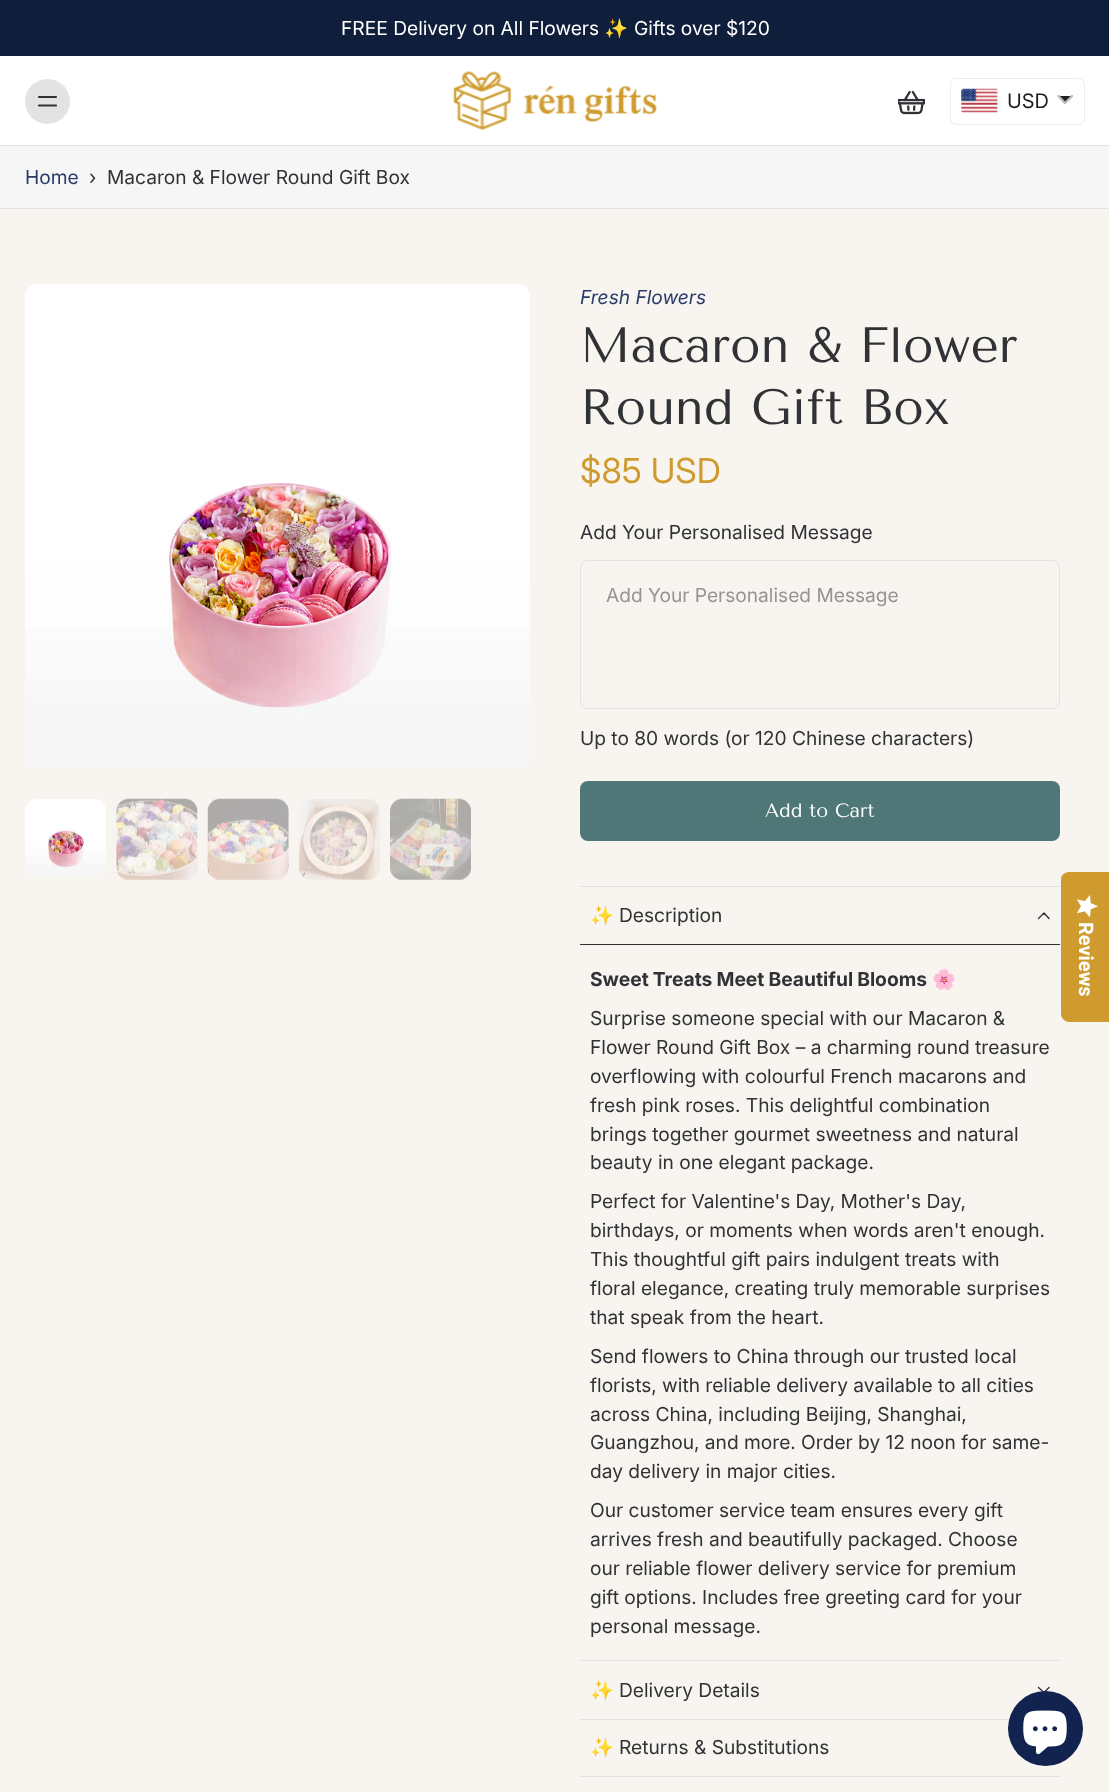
<svg xmlns="http://www.w3.org/2000/svg" width="1109" height="1792" viewBox="0 0 1109 1792">
  <rect width="100%" height="100%" fill="#f8f5f1"/>
  <path d="M0 0h1109v56H0z" fill="#0f1e3b"/>
  <path d="M0 56h1109v89H0z" fill="#fff"/>
  <circle cx="47.5" cy="101.5" r="22.5" fill="#e3e3e3"/>
  <path d="M39 97H56M39 105.5H56" fill="none" stroke="#303236" stroke-width="2.1" stroke-linecap="round"/>
  <image x="452" y="71" width="205" height="59" href="img/1.png"/>
  <image x="898" y="90" width="27" height="25" href="img/2.png"/>
  <rect x="950.5" y="78.5" width="134" height="46" rx="5.5" fill="none" stroke="#ededed"/>
  <image x="961" y="88" width="38" height="25" href="img/3.png"/>
  <path d="M1058.5 96L1065 103L1072 96" fill="#1e1e1e" stroke="#b7b7b7" stroke-width="2.3" stroke-linecap="round" stroke-linejoin="round"/>
  <path d="M0 146h1109v62H0z" fill="#f6f6f6"/>
  <path d="M0 145h1109v1H0z" fill="#e3e3e3"/>
  <path d="M0 208h1109v1H0z" fill="#e3e3e3"/>
  <image x="25" y="284" width="505" height="484" href="img/4.png"/>
  <image x="25" y="799" width="81" height="78" href="img/5.png"/>
  <image x="116" y="798" width="82" height="82" href="img/6.png"/>
  <image x="207" y="798" width="82" height="82" href="img/7.png"/>
  <image x="299" y="799" width="81" height="81" href="img/8.png"/>
  <image x="390" y="798" width="81" height="82" href="img/9.png"/>
  <rect x="580.5" y="560.5" width="479" height="148" rx="7.5" fill="none" stroke="#e3e3e3"/>
  <rect x="580" y="781" width="480" height="60" rx="8" fill="#4f7777"/>
  <path d="M580 886h480v1H580z" fill="#e3e3e3"/>
  <path d="M580 1660h480v1H580z" fill="#e3e3e3"/>
  <path d="M1049 918.5L1044 913L1038.5 918.5" fill="none" stroke="#303236" stroke-width="1.4" stroke-linecap="round" stroke-linejoin="round"/>
  <path d="M580 944h480v1H580z" fill="#303236"/>
  <path d="M580 1719h430v1H580z" fill="#e3e3e3"/>
  <path d="M1038.5 1687.5L1044 1692.5L1049 1687.5" fill="none" stroke="#303236" stroke-width="1.4" stroke-linecap="round" stroke-linejoin="round"/>
  <path d="M580 1776h480v1H580z" fill="#e3e3e3"/>
  <path d="M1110 872V1022H1069C1065 1022 1061 1018 1061 1014V879C1061 875 1065 872 1069 872Z" fill="#cf9b2e"/>
  <image x="1077" y="895" width="21" height="23" href="img/10.png"/>
  <circle cx="1045.5" cy="1728.5" r="37.5" fill="#11234e"/>
  <image x="1023" y="1710" width="44" height="45" href="img/11.png"/>
  <text x="341" y="35" font-family="Inter" font-size="19.25" fill="#fff">FREE Delivery on All Flowers</text>
  <text x="604" y="35" font-family="Noto Color Emoji" font-size="19.25" fill="#fff">✨</text>
  <text x="634" y="35" font-family="Inter" font-size="19.25" fill="#fff">Gifts over $120</text>
  <text x="1007" y="108" font-family="'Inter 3'" font-size="20" fill="#1e1e1e">USD</text>
  <text x="25" y="184" font-family="Inter" font-size="19.25" fill="#293c68">Home</text>
  <g font-family="Inter" font-size="19.25" fill="#303236">
    <text x="89" y="184">›</text>
    <text x="107" y="184">Macaron &amp; Flower Round Gift Box</text>
  </g>
  <text x="580" y="304" font-family="Inter" font-size="19.25" font-style="italic" fill="#293c68">Fresh Flowers</text>
  <g font-family="Tenor Sans" font-size="49.5" fill="#303236">
    <text x="580" y="362">Macaron &amp; Flower</text>
    <text x="580" y="424">Round Gift Box</text>
  </g>
  <text x="580" y="483" font-family="'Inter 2'" font-size="34.5" fill="#cf9b2e">$85 USD</text>
  <text x="580" y="539" font-family="Inter" font-size="19.25" fill="#303236">Add Your Personalised Message</text>
  <text x="606" y="602" font-family="Inter" font-size="19.25" fill="#949494">Add Your Personalised Message</text>
  <text x="580" y="745" font-family="Inter" font-size="19.25" fill="#303236">Up to 80 words (or 120 Chinese characters)</text>
  <text x="765" y="817" font-family="Tenor Sans" font-size="19.25" fill="#fff">Add to Cart</text>
  <text x="590" y="922" font-family="Noto Color Emoji" font-size="19.25" fill="#303236">✨</text>
  <text x="619" y="922" font-family="Inter" font-size="19.25" fill="#303236">Description</text>
  <text x="590" y="986" word-spacing="-0.5" font-family="Inter" font-size="19.25" font-weight="bold" fill="#303236">Sweet Treats Meet Beautiful Blooms</text>
  <text x="932" y="986" font-family="Noto Color Emoji" font-size="19.25" font-weight="bold" fill="#303236">🌸</text>
  <g font-family="Inter" font-size="19.25" fill="#303236">
    <text x="590" y="1025">Surprise someone special with our Macaron &amp;</text>
    <text x="590" y="1054">Flower Round Gift Box – a charming round treasure</text>
    <text x="590" y="1083">overflowing with colourful French macarons and</text>
    <text x="590" y="1112">fresh pink roses. This delightful combination</text>
    <text x="590" y="1141">brings together gourmet sweetness and natural</text>
    <text x="590" y="1169">beauty in one elegant package.</text>
    <text x="590" y="1208">Perfect for Valentine's Day, Mother's Day,</text>
    <text x="590" y="1237">birthdays, or moments when words aren't enough.</text>
    <text x="590" y="1266">This thoughtful gift pairs indulgent treats with</text>
    <text x="590" y="1295">floral elegance, creating truly memorable surprises</text>
    <text x="590" y="1324">that speak from the heart.</text>
    <text x="590" y="1363">Send flowers to China through our trusted local</text>
    <text x="590" y="1392">florists, with reliable delivery available to all cities</text>
    <text x="590" y="1421">across China, including Beijing, Shanghai,</text>
    <text x="590" y="1449">Guangzhou, and more. Order by 12 noon for same-</text>
    <text x="590" y="1478">day delivery in major cities.</text>
    <text x="590" y="1517">Our customer service team ensures every gift</text>
    <text x="590" y="1546">arrives fresh and beautifully packaged. Choose</text>
    <text x="590" y="1575">our reliable flower delivery service for premium</text>
    <text x="590" y="1604">gift options. Includes free greeting card for your</text>
    <text x="590" y="1633">personal message.</text>
  </g>
  <text x="590" y="1697" font-family="Noto Color Emoji" font-size="19.25" fill="#303236">✨</text>
  <text x="619" y="1697" font-family="Inter" font-size="19.25" fill="#303236">Delivery Details</text>
  <text x="590" y="1754" font-family="Noto Color Emoji" font-size="19.25" fill="#303236">✨</text>
  <text x="619" y="1754" font-family="Inter" font-size="19.25" fill="#303236">Returns &amp; Substitutions</text>
  <text x="1079" y="922" transform="rotate(90 1079 922)" font-family="Roboto" font-size="20" font-weight="bold" fill="#fff">Reviews</text>
</svg>
